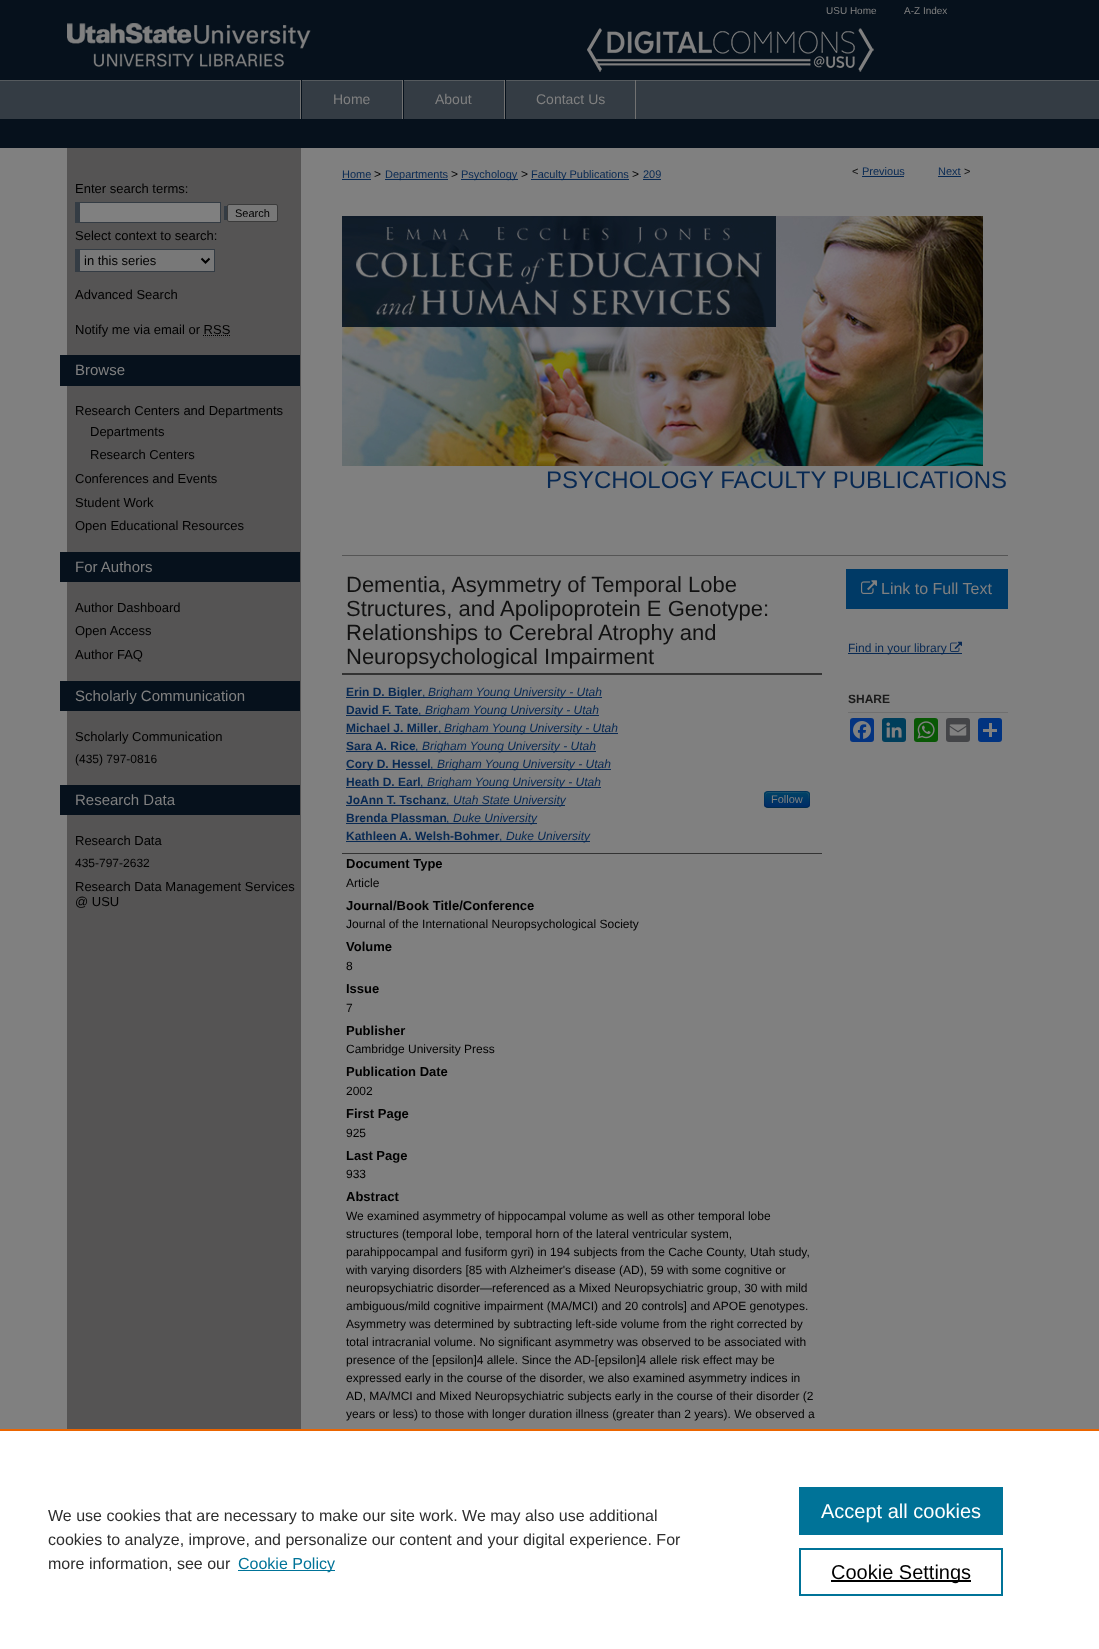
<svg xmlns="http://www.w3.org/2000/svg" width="1099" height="1649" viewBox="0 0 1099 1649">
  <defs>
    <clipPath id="clip1"><rect x="764" y="791" width="46" height="17" rx="4"/></clipPath>
    <linearGradient id="g1" gradientUnits="userSpaceOnUse" x1="787" y1="792" x2="787" y2="807"><stop offset="0" stop-color="#046"/><stop offset="1" stop-color="#002b66"/></linearGradient>
  </defs>
  <rect width="100%" height="100%" fill="#808080"/>
  <image x="0" y="0" width="1099" height="148" href="img/1.png"/>
  <image x="67" y="23" width="244" height="44" href="img/2.png"/>
  <image x="587" y="28" width="287" height="44" href="img/3.png"/>
  <path d="M300 80h1v39H300z" fill="#717171"/>
  <path d="M402 80h1v39H402z" fill="#717171"/>
  <path d="M301 80h1v39H301z" fill="#06111c"/>
  <path d="M504 80h1v39H504z" fill="#717171"/>
  <path d="M403 80h1v39H403z" fill="#06111c"/>
  <path d="M635 80h1v39H635z" fill="#717171"/>
  <path d="M505 80h1v39H505z" fill="#06111c"/>
  <path d="M67 148h234v1281H67z" fill="#555454"/>
  <path d="M75 202h146v21H75z" fill="#343c44"/>
  <path d="M224 206h3v14H224z" fill="#343c44"/>
  <path d="M80 203h140v19H80z" fill="#808080"/>
  <rect x="227.5" y="204.5" width="50" height="17" rx="1.5" fill="#787878" stroke="#3b3b3b"/>
  <path d="M80 250h134v21H80z" fill="#787878"/>
  <path d="M75 249h140v1H75z" fill="#343c44"/>
  <path d="M214 249h1v23H214z" fill="#343c44"/>
  <path d="M75 271h140v1H75z" fill="#343c44"/>
  <path d="M75 249h5v23H75z" fill="#343c44"/>
  <path d="M201.5 258.5L205.5 262.5L209.5 258.5" fill="none" stroke="#000" stroke-width="2"/>
  <path d="M203 335.5H230" fill="none" stroke="#000" stroke-dasharray="1 1"/>
  <path d="M203 337.5H230" fill="none" stroke="#4d4d4d" stroke-dasharray="1 1"/>
  <path d="M60 355h240v31H60z" fill="#06111c"/>
  <path d="M60 552h240v30H60z" fill="#06111c"/>
  <path d="M60 681h240v30H60z" fill="#06111c"/>
  <path d="M60 785h240v30H60z" fill="#06111c"/>
  <path d="M342 179h29v1H342z" fill="#082953"/>
  <path d="M385 179h63v1H385z" fill="#082953"/>
  <path d="M461 179h57v1H461z" fill="#082953"/>
  <path d="M531 179h98v1H531z" fill="#082953"/>
  <path d="M643 179h18v1H643z" fill="#082953"/>
  <path d="M862 176h42v1H862z" fill="#082953"/>
  <path d="M938 176h23v1H938z" fill="#082953"/>
  <image x="342" y="216" width="641" height="250" href="img/4.png"/>
  <path d="M342 555h666v1H342z" fill="#555"/>
  <path d="M342 673h480v2H342z" fill="#333"/>
  <path d="M342 853h480v1H342z" fill="#333"/>
  <path d="M346 697h256v1H346z" fill="#082953"/>
  <path d="M346 715h253v1H346z" fill="#082953"/>
  <path d="M346 733h272v1H346z" fill="#082953"/>
  <path d="M346 751h250v1H346z" fill="#082953"/>
  <path d="M346 769h265v1H346z" fill="#082953"/>
  <path d="M346 787h255v1H346z" fill="#082953"/>
  <path d="M346 805h219v1H346z" fill="#082953"/>
  <rect x="764" y="791" width="46" height="17" rx="4" fill="#003a66"/>
  <g clip-path="url(#clip1)">
    <path d="M764 792h46v15H764z" fill="url(#g1)"/>
  </g>
  <path d="M768 793H793C807 793 809 789 809 804C809 793 812 792 800 792H774C767 792 765 791 765 798V805C765 802 764 793 768 793Z" fill="#80808033"/>
  <path d="M808.5 806.5C808 807 807 807.5 806 807.5H768C767 807.5 766 807 765.5 806.5" fill="none" stroke="#00000040"/>
  <path d="M765.5 806.5C764 804.5 764.5 801.5 764.5 799.5C764.5 790.5 765 791.5 774.5 791.5H799.5C809 791.5 809.5 790.5 809.5 799.5C809.5 801.5 810 804.5 808.5 806.5" fill="none" stroke="#0000001a"/>
  <path d="M346 823h191v1H346z" fill="#082953"/>
  <path d="M346 841h244v1H346z" fill="#082953"/>
  <path d="M846 569h162v40H846z" fill="#003a66"/>
  <image x="861" y="580" width="16" height="14" href="img/5.png"/>
  <path d="M848 653h114v1H848z" fill="#082953"/>
  <image x="950" y="641" width="12" height="11" href="img/6.png"/>
  <path d="M848 712h160v1H848z" fill="#6f6f6f"/>
  <rect x="850" y="718" width="24" height="24" rx="3" fill="#043380"/>
  <image x="853" y="721" width="18" height="18" href="img/7.png"/>
  <rect x="882" y="718" width="24" height="24" rx="3" fill="#003e5b"/>
  <image x="886" y="722" width="16" height="16" href="img/8.png"/>
  <rect x="914" y="718" width="24" height="24" rx="3" fill="#095805"/>
  <image x="917" y="721" width="18" height="18" href="img/9.png"/>
  <rect x="946" y="718" width="24" height="24" rx="3" fill="#444548"/>
  <image x="949" y="724" width="18" height="12" href="img/10.png"/>
  <rect x="978" y="718" width="24" height="24" rx="3" fill="#013380"/>
  <path d="M989 723h3v14H989z" fill="#808080"/>
  <path d="M983 729h14v3H983z" fill="#808080"/>
  <path d="M0 1431h1099v218H0z" fill="#fff"/>
  <path d="M0 1429h1099v2H0z" fill="#eb6500"/>
  <path d="M238 1570h97v1H238z" fill="#007398"/>
  <path d="M799 1487h204v48H799z" fill="#007398"/>
  <path d="M800 1549h202v46H800z" fill="none" stroke="#007398" stroke-width="2"/>
  <path d="M831 1580h140v2H831z" fill="#000"/>
  <g font-family="Liberation Sans" font-size="10" fill="#808080">
    <text x="826" y="14">USU Home</text>
    <text x="904" y="14">A-Z Index</text>
  </g>
  <g font-family="Liberation Sans" font-size="14" fill="#808080">
    <text x="333" y="104">Home</text>
    <text x="435" y="104">About</text>
    <text x="536" y="104">Contact Us</text>
  </g>
  <text x="75" y="193" font-family="Liberation Sans" font-size="13" fill="#000">Enter search terms:</text>
  <text x="235" y="217" font-family="Liberation Sans" font-size="11" fill="#000">Search</text>
  <g font-family="Liberation Sans" font-size="13" fill="#000">
    <text x="75" y="240">Select context to search:</text>
    <text x="84" y="265">in this series</text>
    <text x="75" y="299">Advanced Search</text>
    <text x="75" y="334">Notify me via email or RSS</text>
  </g>
  <text x="75" y="375" font-family="Liberation Sans" font-size="15" fill="#808080">Browse</text>
  <g font-family="Liberation Sans" font-size="13" fill="#000">
    <text x="75" y="415">Research Centers and Departments</text>
    <text x="90" y="436">Departments</text>
    <text x="90" y="459">Research Centers</text>
    <text x="75" y="483">Conferences and Events</text>
    <text x="75" y="507">Student Work</text>
    <text x="75" y="530">Open Educational Resources</text>
  </g>
  <text x="75" y="572" font-family="Liberation Sans" font-size="15" fill="#808080">For Authors</text>
  <g font-family="Liberation Sans" font-size="13" fill="#000">
    <text x="75" y="612">Author Dashboard</text>
    <text x="75" y="635">Open Access</text>
    <text x="75" y="659">Author FAQ</text>
  </g>
  <text x="75" y="701" font-family="Liberation Sans" font-size="15" fill="#808080">Scholarly Communication</text>
  <text x="75" y="741" font-family="Liberation Sans" font-size="13" fill="#000">Scholarly Communication</text>
  <text x="75" y="763" font-family="Liberation Sans" font-size="12" fill="#000">(435) 797-0816</text>
  <text x="75" y="805" font-family="Liberation Sans" font-size="15" fill="#808080">Research Data</text>
  <text x="75" y="845" font-family="Liberation Sans" font-size="13" fill="#000">Research Data</text>
  <text x="75" y="867" font-family="Liberation Sans" font-size="12" fill="#000">435-797-2632</text>
  <g font-family="Liberation Sans" font-size="13" fill="#000">
    <text x="75" y="891">Research Data Management Services</text>
    <text x="75" y="906">@ USU</text>
  </g>
  <text x="342" y="178" font-family="Liberation Sans" font-size="11" fill="#082953">Home</text>
  <text x="374" y="178" font-family="Liberation Sans" font-size="12" fill="#000">&gt;</text>
  <text x="385" y="178" font-family="Liberation Sans" font-size="11" fill="#082953">Departments</text>
  <text x="451" y="178" font-family="Liberation Sans" font-size="12" fill="#000">&gt;</text>
  <text x="461" y="178" font-family="Liberation Sans" font-size="11" fill="#082953">Psychology</text>
  <text x="521" y="178" font-family="Liberation Sans" font-size="12" fill="#000">&gt;</text>
  <text x="531" y="178" font-family="Liberation Sans" font-size="11" fill="#082953">Faculty Publications</text>
  <text x="632" y="178" font-family="Liberation Sans" font-size="12" fill="#000">&gt;</text>
  <text x="643" y="178" font-family="Liberation Sans" font-size="11" fill="#082953">209</text>
  <text x="852" y="175" font-family="Liberation Sans" font-size="11" fill="#111">&lt;</text>
  <g font-family="Liberation Sans" font-size="11" fill="#082953">
    <text x="862" y="175">Previous</text>
    <text x="938" y="175">Next</text>
  </g>
  <text x="964" y="175" font-family="Liberation Sans" font-size="11" fill="#111">&gt;</text>
  <text x="546" y="488" font-family="Liberation Sans" font-size="24" fill="#082953">PSYCHOLOGY FACULTY PUBLICATIONS</text>
  <g font-family="Liberation Sans" font-size="22" fill="#111">
    <text x="346" y="592">Dementia, Asymmetry of Temporal Lobe</text>
    <text x="346" y="616">Structures, and Apolipoprotein E Genotype:</text>
    <text x="346" y="640">Relationships to Cerebral Atrophy and</text>
    <text x="346" y="664">Neuropsychological Impairment</text>
  </g>
  <text x="346" y="696" font-family="Liberation Sans" font-size="12" font-weight="bold" fill="#082953">Erin D. Bigler</text>
  <text x="422" y="696" font-family="Liberation Sans" font-size="12" fill="#082953">,</text>
  <text x="428" y="696" font-family="Liberation Sans" font-size="12" font-style="italic" fill="#082953">Brigham Young University - Utah</text>
  <text x="346" y="714" font-family="Liberation Sans" font-size="12" font-weight="bold" fill="#082953">David F. Tate</text>
  <text x="418" y="714" font-family="Liberation Sans" font-size="12" fill="#082953">,</text>
  <text x="425" y="714" font-family="Liberation Sans" font-size="12" font-style="italic" fill="#082953">Brigham Young University - Utah</text>
  <text x="346" y="732" font-family="Liberation Sans" font-size="12" font-weight="bold" fill="#082953">Michael J. Miller</text>
  <text x="438" y="732" font-family="Liberation Sans" font-size="12" fill="#082953">,</text>
  <text x="444" y="732" font-family="Liberation Sans" font-size="12" font-style="italic" fill="#082953">Brigham Young University - Utah</text>
  <text x="346" y="750" font-family="Liberation Sans" font-size="12" font-weight="bold" fill="#082953">Sara A. Rice</text>
  <text x="415" y="750" font-family="Liberation Sans" font-size="12" fill="#082953">,</text>
  <text x="422" y="750" font-family="Liberation Sans" font-size="12" font-style="italic" fill="#082953">Brigham Young University - Utah</text>
  <text x="346" y="768" font-family="Liberation Sans" font-size="12" font-weight="bold" fill="#082953">Cory D. Hessel</text>
  <text x="430" y="768" font-family="Liberation Sans" font-size="12" fill="#082953">,</text>
  <text x="437" y="768" font-family="Liberation Sans" font-size="12" font-style="italic" fill="#082953">Brigham Young University - Utah</text>
  <text x="346" y="786" font-family="Liberation Sans" font-size="12" font-weight="bold" fill="#082953">Heath D. Earl</text>
  <text x="420" y="786" font-family="Liberation Sans" font-size="12" fill="#082953">,</text>
  <text x="427" y="786" font-family="Liberation Sans" font-size="12" font-style="italic" fill="#082953">Brigham Young University - Utah</text>
  <text x="346" y="804" font-family="Liberation Sans" font-size="12" font-weight="bold" fill="#082953">JoAnn T. Tschanz</text>
  <text x="446" y="804" font-family="Liberation Sans" font-size="12" fill="#082953">,</text>
  <text x="453" y="804" font-family="Liberation Sans" font-size="12" font-style="italic" fill="#082953">Utah State University</text>
  <text x="771" y="803" font-family="Liberation Sans" font-size="11" fill="#808080">Follow</text>
  <text x="346" y="822" font-family="Liberation Sans" font-size="12" font-weight="bold" fill="#082953">Brenda Plassman</text>
  <text x="446" y="822" font-family="Liberation Sans" font-size="12" fill="#082953">,</text>
  <text x="453" y="822" font-family="Liberation Sans" font-size="12" font-style="italic" fill="#082953">Duke University</text>
  <text x="346" y="840" font-family="Liberation Sans" font-size="12" font-weight="bold" fill="#082953">Kathleen A. Welsh-Bohmer</text>
  <text x="499" y="840" font-family="Liberation Sans" font-size="12" fill="#082953">,</text>
  <text x="506" y="840" font-family="Liberation Sans" font-size="12" font-style="italic" fill="#082953">Duke University</text>
  <text x="346" y="868" font-family="Liberation Sans" font-size="13" font-weight="bold" fill="#000">Document Type</text>
  <text x="346" y="887" font-family="Liberation Sans" font-size="12" fill="#000">Article</text>
  <text x="346" y="910" font-family="Liberation Sans" font-size="13" font-weight="bold" fill="#000">Journal/Book Title/Conference</text>
  <text x="346" y="928" font-family="Liberation Sans" font-size="12" fill="#000">Journal of the International Neuropsychological Society</text>
  <text x="346" y="951" font-family="Liberation Sans" font-size="13" font-weight="bold" fill="#000">Volume</text>
  <text x="346" y="970" font-family="Liberation Sans" font-size="12" fill="#000">8</text>
  <text x="346" y="993" font-family="Liberation Sans" font-size="13" font-weight="bold" fill="#000">Issue</text>
  <text x="346" y="1012" font-family="Liberation Sans" font-size="12" fill="#000">7</text>
  <text x="346" y="1035" font-family="Liberation Sans" font-size="13" font-weight="bold" fill="#000">Publisher</text>
  <text x="346" y="1053" font-family="Liberation Sans" font-size="12" fill="#000">Cambridge University Press</text>
  <text x="346" y="1076" font-family="Liberation Sans" font-size="13" font-weight="bold" fill="#000">Publication Date</text>
  <text x="346" y="1095" font-family="Liberation Sans" font-size="12" fill="#000">2002</text>
  <text x="346" y="1118" font-family="Liberation Sans" font-size="13" font-weight="bold" fill="#000">First Page</text>
  <text x="346" y="1137" font-family="Liberation Sans" font-size="12" fill="#000">925</text>
  <text x="346" y="1160" font-family="Liberation Sans" font-size="13" font-weight="bold" fill="#000">Last Page</text>
  <text x="346" y="1178" font-family="Liberation Sans" font-size="12" fill="#000">933</text>
  <text x="346" y="1201" font-family="Liberation Sans" font-size="13" font-weight="bold" fill="#000">Abstract</text>
  <g font-family="Liberation Sans" font-size="12" fill="#000">
    <text x="346" y="1220">We examined asymmetry of hippocampal volume as well as other temporal lobe</text>
    <text x="346" y="1238">structures (temporal lobe, temporal horn of the lateral ventricular system,</text>
    <text x="346" y="1256">parahippocampal and fusiform gyri) in 194 subjects from the Cache County, Utah study,</text>
    <text x="346" y="1274">with varying disorders [85 with Alzheimer's disease (AD), 59 with some cognitive or</text>
    <text x="346" y="1292">neuropsychiatric disorder—referenced as a Mixed Neuropsychiatric group, 30 with mild</text>
    <text x="346" y="1310">ambiguous/mild cognitive impairment (MA/MCI) and 20 controls] and APOE genotypes.</text>
    <text x="346" y="1328">Asymmetry was determined by subtracting left-side volume from the right corrected by</text>
    <text x="346" y="1346">total intracranial volume. No significant asymmetry was observed to be associated with</text>
    <text x="346" y="1364">presence of the [epsilon]4 allele. Since the AD-[epsilon]4 allele risk effect may be</text>
    <text x="346" y="1382">expressed early in the course of the disorder, we also examined asymmetry indices in</text>
    <text x="346" y="1400">AD, MA/MCI and Mixed Neuropsychiatric subjects early in the course of their disorder (2</text>
    <text x="346" y="1418">years or less) to those with longer duration illness (greater than 2 years). We observed a</text>
  </g>
  <text x="881" y="594" font-family="Liberation Sans" font-size="16" fill="#808080">Link to Full Text</text>
  <text x="848" y="652" font-family="Liberation Sans" font-size="12" fill="#082953">Find in your library</text>
  <text x="848" y="703" font-family="Liberation Sans" font-size="12" font-weight="bold" fill="#1a1a1a">SHARE</text>
  <g font-family="Liberation Sans" font-size="16" fill="#2e2e2e">
    <text x="48" y="1521">We use cookies that are necessary to make our site work. We may also use additional</text>
    <text x="48" y="1545">cookies to analyze, improve, and personalize our content and your digital experience. For</text>
    <text x="48" y="1569">more information, see our</text>
  </g>
  <text x="238" y="1569" font-family="Liberation Sans" font-size="16" fill="#007398">Cookie Policy</text>
  <text x="821" y="1518" font-family="Liberation Sans" font-size="20" fill="#fff">Accept all cookies</text>
  <text x="831" y="1579" font-family="Liberation Sans" font-size="20" fill="#000">Cookie Settings</text>
</svg>
